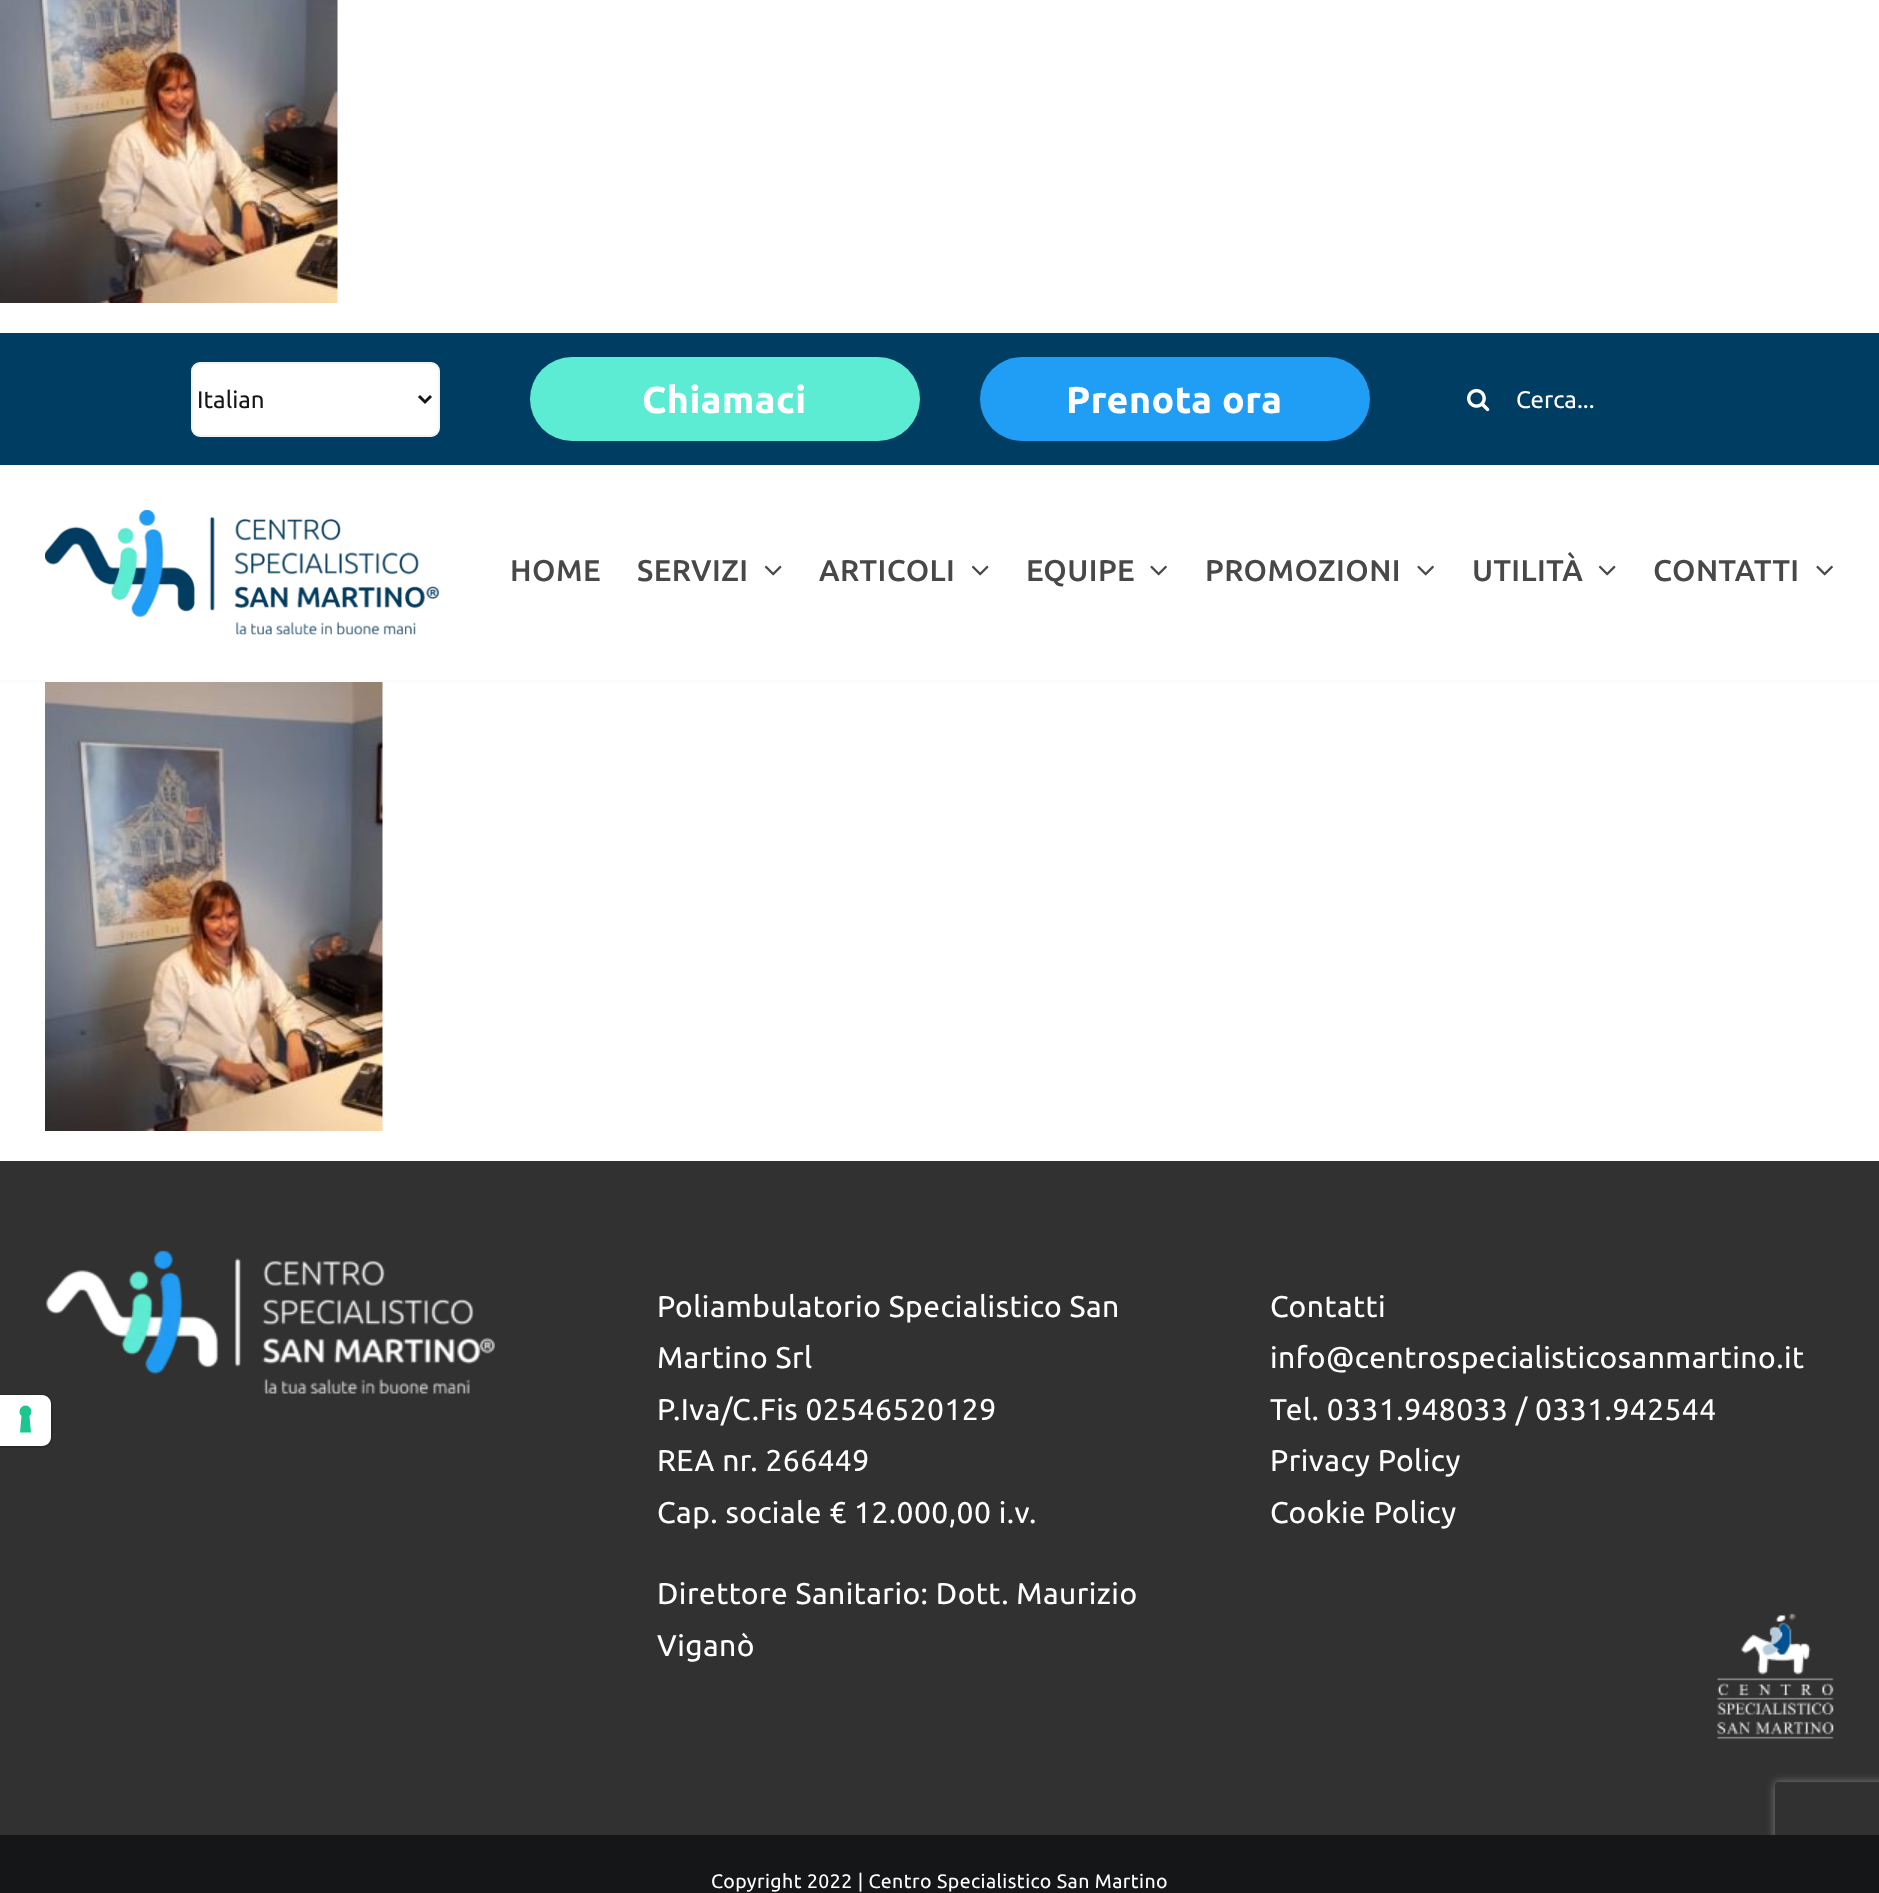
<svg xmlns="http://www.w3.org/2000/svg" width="1879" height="1893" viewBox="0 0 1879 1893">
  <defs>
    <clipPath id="clip1"><path d="M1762 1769H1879V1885H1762ZM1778 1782H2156C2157.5 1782 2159 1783.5 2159 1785V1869C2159 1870.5 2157.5 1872 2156 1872H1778C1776.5 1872 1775 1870.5 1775 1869V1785C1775 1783.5 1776.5 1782 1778 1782Z" clip-rule="evenodd"/></clipPath>
  </defs>
  <rect width="100%" height="100%" fill="#fff"/>
  <path d="M0 1161h1879v674H0z" fill="#313131"/>
  <path d="M0 1395H42C47.5 1395 52 1399.5 52 1405V1437C52 1442.5 47.5 1447 42 1447H0Z" fill="none" stroke="#2a2a2a" stroke-width="2"/>
  <path d="M0 1395H42C47 1395 51 1399 51 1404V1437C51 1442 47 1446 42 1446H0Z" fill="#fff"/>
  <path d="M25.5 1405.5C31 1405.5 33.5 1412.5 29.5 1416L31 1432.5H20L21.5 1416C17.5 1412.5 20 1405.5 25.5 1405.5Z" fill="#1cc691" fill-rule="evenodd"/>
  <image x="0" y="0" width="338" height="303" href="img/1.png"/>
  <path d="M0 333h1879v132H0z" fill="#003d62"/>
  <rect x="192" y="363" width="247" height="73" rx="8" fill="#fff" stroke="#f2f3f5" stroke-width="2"/>
  <path d="M419 396L425 402L431 396" fill="none" stroke="#141617" stroke-width="3"/>
  <rect x="530" y="357" width="390" height="84" rx="42" fill="#5cecd3"/>
  <rect x="980" y="357" width="390" height="84" rx="42" fill="#209df5"/>
  <image x="1467" y="388" width="23" height="24" href="img/2.png"/>
  <image x="45" y="510" width="395" height="125" href="img/3.png"/>
  <image x="764" y="565" width="18" height="11" href="img/4.png"/>
  <image x="971" y="565" width="18" height="11" href="img/4.png"/>
  <image x="1150" y="565" width="17" height="11" href="img/5.png"/>
  <image x="1417" y="565" width="17" height="11" href="img/5.png"/>
  <image x="1598" y="565" width="18" height="11" href="img/4.png"/>
  <image x="1816" y="565" width="17" height="11" href="img/5.png"/>
  <path d="M0 680h1879v2H0z" fill="#fcfcfc"/>
  <image x="45" y="682" width="338" height="449" href="img/6.png"/>
  <image x="45" y="1250" width="450" height="144" href="img/7.png"/>
  <image x="1717" y="1613" width="117" height="126" href="img/8.png"/>
  <g clip-path="url(#clip1)">
    <rect x="1775" y="1782" width="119" height="90" rx="3" fill="#808080" filter="blur(4px)"/>
  </g>
  <path d="M0 1835h1879v58H0z" fill="#141617"/>
  <text x="197" y="408" font-family="Ubuntu" font-size="24" fill="#141617">Italian</text>
  <g font-family="Ubuntu" font-size="37.5" font-weight="bold" letter-spacing="0.5" fill="#fff">
    <text x="642" y="413">Chiamaci</text>
    <text x="1066" y="413">Prenota ora</text>
  </g>
  <text x="1516" y="408" font-family="Ubuntu" font-size="24" fill="#fff">Cerca...</text>
  <g font-family="Ubuntu" font-size="30" font-weight="500" letter-spacing="0.45" fill="#484848">
    <text x="510" y="581">HOME</text>
    <text x="637" y="581">SERVIZI</text>
    <text x="819" y="581">ARTICOLI</text>
    <text x="1026" y="581">EQUIPE</text>
    <text x="1205" y="581">PROMOZIONI</text>
    <text x="1472" y="581">UTILITÀ</text>
    <text x="1653" y="581">CONTATTI</text>
  </g>
  <g font-family="Ubuntu" font-size="30" letter-spacing="0.45" fill="#fff">
    <text x="657" y="1317">Poliambulatorio Specialistico San</text>
    <text x="657" y="1368">Martino Srl</text>
    <text x="657" y="1420">P.Iva/C.Fis 02546520129</text>
    <text x="657" y="1471">REA nr. 266449</text>
    <text x="657" y="1523">Cap. sociale € 12.000,00 i.v.</text>
    <text x="657" y="1604">Direttore Sanitario: Dott. Maurizio</text>
    <text x="657" y="1656">Viganò</text>
    <text x="1270" y="1317">Contatti</text>
    <text x="1270" y="1368">info@centrospecialisticosanmartino.it</text>
    <text x="1270" y="1420">Tel. 0331.948033 / 0331.942544</text>
    <text x="1270" y="1471">Privacy Policy</text>
    <text x="1270" y="1523">Cookie Policy</text>
  </g>
  <text x="711" y="1888" font-family="Ubuntu" font-size="19.5" letter-spacing="0.45" fill="#fff">Copyright 2022 | Centro Specialistico San Martino</text>
</svg>
